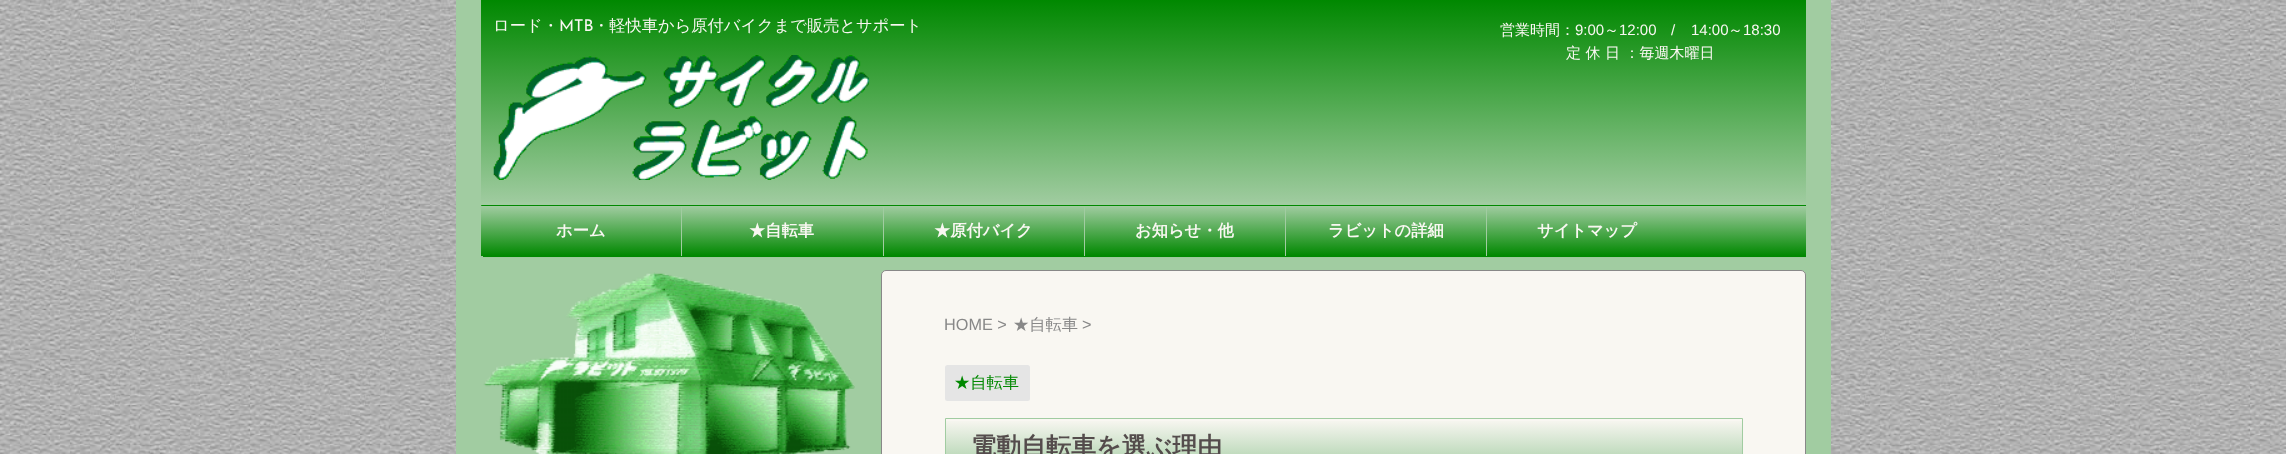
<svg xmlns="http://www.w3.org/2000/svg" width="2286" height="454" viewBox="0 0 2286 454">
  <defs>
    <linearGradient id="g1" gradientUnits="userSpaceOnUse" x1="1144" y1="0" x2="1144" y2="205"><stop offset="0" stop-color="#080"/><stop offset="1" stop-color="#a1cca1"/></linearGradient>
    <linearGradient id="g2" gradientUnits="userSpaceOnUse" x1="1144" y1="156" x2="1144" y2="206"><stop offset="0" stop-color="#a1cca1"/><stop offset="1" stop-color="#080"/></linearGradient>
    <linearGradient id="g3" gradientUnits="userSpaceOnUse" x1="1144" y1="206" x2="1144" y2="256"><stop offset="0" stop-color="#a1cca1"/><stop offset="1" stop-color="#080"/></linearGradient>
    <linearGradient id="g4" gradientUnits="userSpaceOnUse" x1="1144" y1="256" x2="1144" y2="306"><stop offset="0" stop-color="#a1cca1"/><stop offset="1" stop-color="#080"/></linearGradient>
    <linearGradient id="g5" gradientUnits="userSpaceOnUse" x1="1344" y1="419" x2="1344" y2="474"><stop offset="0" stop-color="#f9f7f2"/><stop offset="1" stop-color="#a1cca1"/></linearGradient>
  </defs>
  <rect width="100%" height="100%" fill="#fff"/>
  <image x="0" y="0" width="2286" height="454" href="img/1.png"/>
  <path d="M456 0h1375v454H456z" fill="#a1cca1"/>
  <path d="M481 0h1325v202H481z" fill="url(#g1)"/>
  <image x="493" y="55" width="376" height="125" href="img/2.png"/>
  <path d="M482 205H1805C1805.5 205 1806 205.5 1806 206H481C481 205.5 481.5 205 482 205Z" fill="url(#g2)"/>
  <path d="M481 207h1325v49H481z" fill="url(#g3)"/>
  <path d="M481 256H1806V257C1806 257.5 1805.5 258 1805 258H482C481.5 258 481 257.5 481 257Z" fill="url(#g4)"/>
  <path d="M1805 205h1v1H1805z" fill="#080"/>
  <path d="M483 256h1323v1H483z" fill="#080"/>
  <path d="M681 206h1v50H681z" fill="#a1cca1"/>
  <path d="M883 206h1v50H883z" fill="#a1cca1"/>
  <path d="M1084 206h1v50H1084z" fill="#a1cca1"/>
  <path d="M1285 206h1v50H1285z" fill="#a1cca1"/>
  <path d="M1486 206h1v50H1486z" fill="#a1cca1"/>
  <image x="483" y="272" width="372" height="182" href="img/3.png"/>
  <rect x="881.5" y="270.5" width="924" height="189" rx="4.5" fill="#f9f7f2" stroke="#888"/>
  <rect x="945" y="365" width="85" height="36" rx="2.5" fill="#e5e5e5"/>
  <path d="M946 421h796v33H946z" fill="url(#g5)"/>
  <path d="M945.5 418.5h797v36H945.5z" fill="none" stroke="#a1cca1"/>
  <text x="493" y="31" font-family="WenQuanYi Zen Hei" font-size="16.25" font-weight="500" fill="#f9f7f2">ロード・</text>
  <text x="559" y="31" font-family="Josefin Sans" font-size="16.25" fill="#f9f7f2">MTB</text>
  <text x="593" y="31" font-family="WenQuanYi Zen Hei" font-size="16.25" font-weight="500" fill="#f9f7f2">・軽快車から原付バイクまで販売とサポート</text>
  <text x="1500" y="35" font-family="WenQuanYi Zen Hei" font-size="15" font-weight="500" fill="#f9f7f2">営業時間：</text>
  <text x="1575" y="35" font-family="Liberation Sans" font-size="15" fill="#f9f7f2">9:00</text>
  <text x="1604" y="35" font-family="WenQuanYi Zen Hei" font-size="15" font-weight="500" fill="#f9f7f2">～</text>
  <g font-family="Liberation Sans" font-size="15" fill="#f9f7f2">
    <text x="1619" y="35">12:00</text>
    <text x="1671" y="35">/</text>
    <text x="1691" y="35">14:00</text>
  </g>
  <text x="1728" y="35" font-family="WenQuanYi Zen Hei" font-size="15" font-weight="500" fill="#f9f7f2">～</text>
  <text x="1743" y="35" font-family="Liberation Sans" font-size="15" fill="#f9f7f2">18:30</text>
  <text x="1566" y="58" font-family="WenQuanYi Zen Hei" font-size="15" font-weight="500" fill="#f9f7f2">定 休 日 ：毎週木曜日</text>
  <g font-family="WenQuanYi Zen Hei" font-size="16.25" font-weight="bold" fill="#f9f7f2">
    <text x="556" y="236">ホーム</text>
    <text x="749" y="236">★自転車</text>
    <text x="934" y="236">★原付バイク</text>
    <text x="1135" y="236">お知らせ・他</text>
    <text x="1328" y="236">ラビットの詳細</text>
    <text x="1537" y="236">サイトマップ</text>
  </g>
  <text x="944" y="330" font-family="Liberation Sans" font-size="16.25" fill="#888">HOME &gt;</text>
  <text x="1013" y="330" font-family="WenQuanYi Zen Hei" font-size="16.25" font-weight="500" fill="#888">★自転車</text>
  <text x="1082" y="330" font-family="Liberation Sans" font-size="16.25" fill="#888">&gt;</text>
  <text x="954" y="388" font-family="WenQuanYi Zen Hei" font-size="16.25" font-weight="500" fill="#080">★自転車</text>
  <text x="971" y="455" font-family="WenQuanYi Zen Hei" font-size="25" font-weight="bold" fill="#544c4c">電動自転車を選ぶ理由</text>
</svg>
